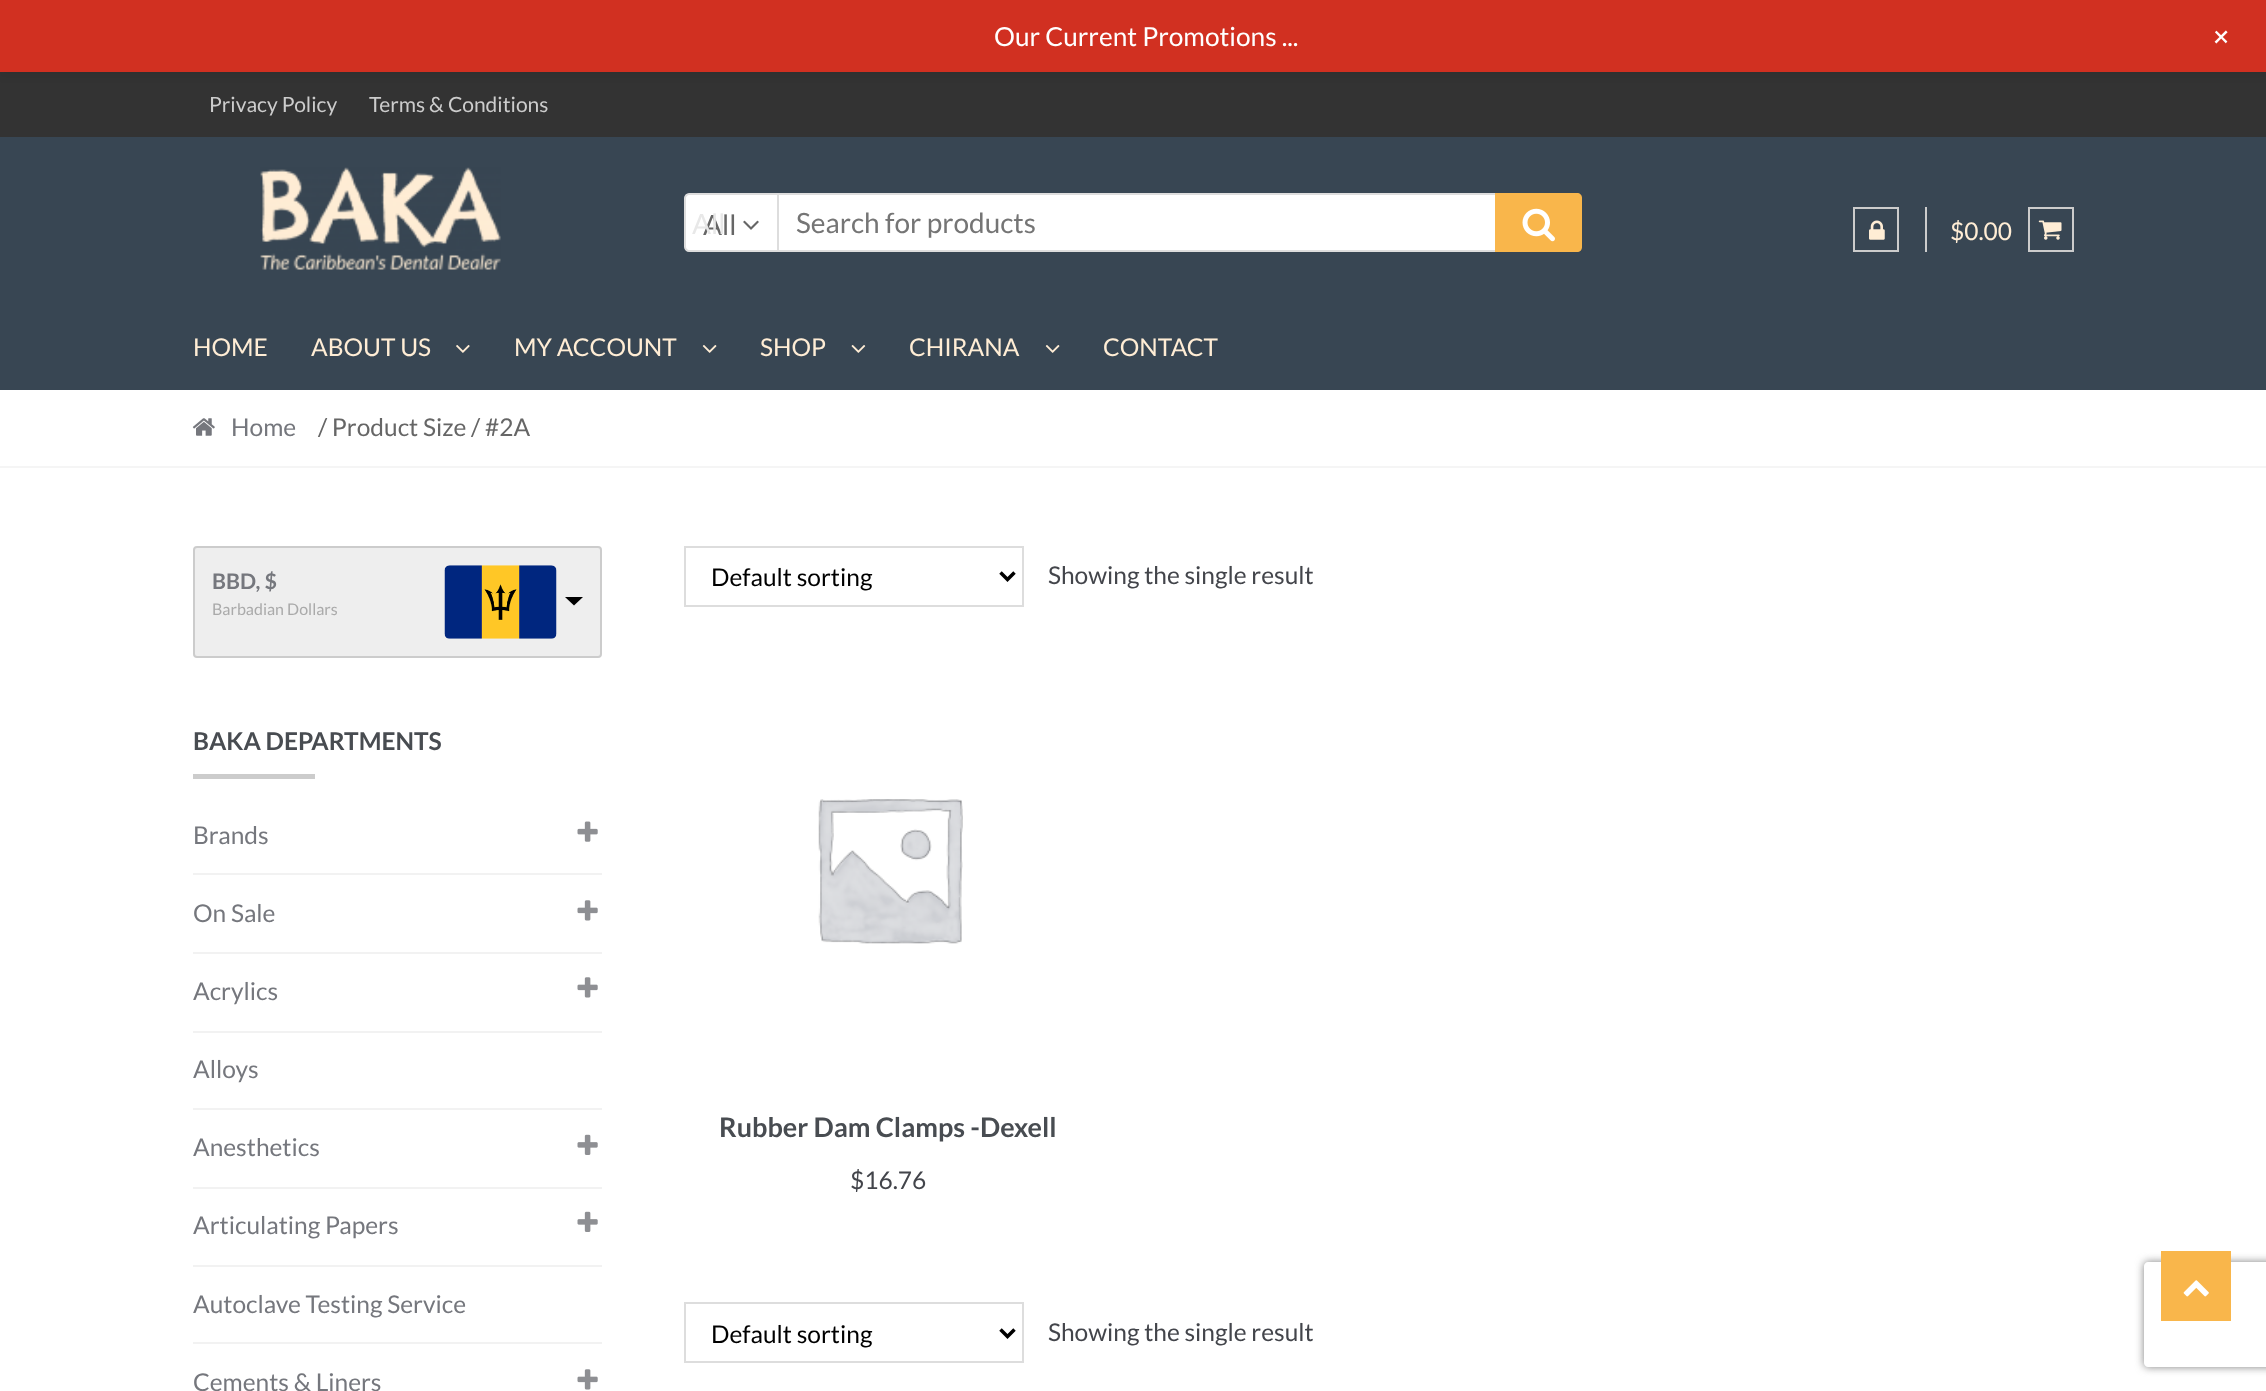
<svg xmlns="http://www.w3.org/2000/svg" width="2266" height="1391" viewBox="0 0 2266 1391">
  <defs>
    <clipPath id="clip1"><path d="M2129 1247H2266V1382H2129ZM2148 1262H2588C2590 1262 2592 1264 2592 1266V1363C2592 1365 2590 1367 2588 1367H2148C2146 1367 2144 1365 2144 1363V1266C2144 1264 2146 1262 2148 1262Z" clip-rule="evenodd"/></clipPath>
  </defs>
  <rect width="100%" height="100%" fill="#fff"/>
  <path d="M0 72h2266v65H0z" fill="#333"/>
  <path d="M0 5h2266v72H0z" fill="#0000000d" filter="blur(3.5px)"/>
  <path d="M0 0h2266v72H0z" fill="#d13021"/>
  <path d="M0 137h2266v253H0z" fill="#384653"/>
  <image x="260" y="167" width="241" height="103" href="img/1.png"/>
  <path d="M689 194H778V251H689C687 251 685 249 685 247V198C685 196 687 194 689 194Z" fill="#fff" stroke="#ddd" stroke-width="2"/>
  <image x="743" y="220" width="16" height="10" href="img/2.png"/>
  <path d="M779 195h716v55H779z" fill="#fff"/>
  <path d="M779 193h716v2H779z" fill="#ddd"/>
  <path d="M779 250h716v2H779z" fill="#ddd"/>
  <path d="M1495 193H1577C1580 193 1582 195 1582 198V247C1582 250 1580 252 1577 252H1495Z" fill="#f9b64b"/>
  <image x="1522" y="208" width="33" height="34" href="img/3.png"/>
  <path d="M1925 207h2v45H1925z" fill="#ccc"/>
  <path d="M1854 208h44v43H1854z" fill="none" stroke="#ccc" stroke-width="2"/>
  <image x="1869" y="220" width="16" height="20" href="img/4.png"/>
  <path d="M2029 208h44v43H2029z" fill="none" stroke="#ccc" stroke-width="2"/>
  <image x="2038" y="220" width="24" height="20" href="img/5.png"/>
  <image x="456" y="345" width="14" height="8" href="img/6.png"/>
  <image x="702" y="345" width="15" height="8" href="img/7.png"/>
  <image x="851" y="345" width="15" height="8" href="img/8.png"/>
  <image x="1045" y="345" width="15" height="8" href="img/7.png"/>
  <path d="M0 466h2266v2H0z" fill="#f5f5f5"/>
  <image x="192" y="418" width="23" height="18" href="img/9.png"/>
  <rect x="194" y="547" width="407" height="110" rx="3" fill="#eee" stroke="#ccc" stroke-width="2"/>
  <image x="444" y="565" width="113" height="74" href="img/10.png"/>
  <path d="M565 597H583L574 605.5Z" fill="#000"/>
  <path d="M193 774h122v5H193z" fill="#ccc"/>
  <path d="M193 873h409v2H193z" fill="#f2f2f2"/>
  <image x="577" y="821" width="21" height="21" href="img/11.png"/>
  <path d="M193 952h409v2H193z" fill="#f2f2f2"/>
  <image x="577" y="900" width="21" height="21" href="img/12.png"/>
  <path d="M193 1031h409v2H193z" fill="#f2f2f2"/>
  <image x="577" y="977" width="21" height="21" href="img/12.png"/>
  <path d="M193 1108h409v2H193z" fill="#f2f2f2"/>
  <path d="M193 1187h409v2H193z" fill="#f2f2f2"/>
  <image x="577" y="1134" width="21" height="21" href="img/13.png"/>
  <path d="M193 1265h409v2H193z" fill="#f2f2f2"/>
  <image x="577" y="1211" width="21" height="21" href="img/13.png"/>
  <path d="M193 1342h409v2H193z" fill="#f2f2f2"/>
  <image x="577" y="1369" width="21" height="21" href="img/12.png"/>
  <path d="M685 547h338v59H685z" fill="none" stroke="#ddd" stroke-width="2"/>
  <path d="M1000.5 572.5L1007.5 579.5L1014.5 572.5" fill="none" stroke="#000" stroke-width="3.5"/>
  <image x="818" y="799" width="145" height="145" href="img/14.png"/>
  <path d="M685 1303h338v59H685z" fill="none" stroke="#ddd" stroke-width="2"/>
  <path d="M1000.5 1329.5L1007.5 1336.5L1014.5 1329.5" fill="none" stroke="#000" stroke-width="3.5"/>
  <g clip-path="url(#clip1)">
    <rect x="2144" y="1262" width="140" height="105" rx="4" fill="#808080" filter="blur(4.5px)"/>
  </g>
  <path d="M2161 1251h70v70H2161z" fill="#f9b64b"/>
  <image x="2183" y="1280" width="26" height="17" href="img/15.png"/>
  <text x="994" y="46" font-family="Lato" font-size="26.25" fill="#fff">Our Current Promotions ...</text>
  <text x="2207" y="38" transform="rotate(45 2207 38)" font-family="Lato" font-size="32" fill="#fff">+</text>
  <g font-family="Lato" font-size="21" fill="#ccc">
    <text x="209" y="112">Privacy Policy</text>
    <text x="369" y="112">Terms &amp; Conditions</text>
  </g>
  <text x="703" y="235" font-family="Lato" font-size="28" fill="#666">All</text>
  <text x="692" y="234" font-family="Lato" font-size="28" fill="#e8e8e8">All</text>
  <text x="796" y="233" font-family="Lato" font-size="28" fill="#757575">Search for products</text>
  <g font-family="Lato" font-size="24.5" fill="#ffedd5">
    <text x="1950" y="240">$0.00</text>
    <text x="193" y="356">HOME</text>
    <text x="311" y="356">ABOUT US</text>
    <text x="514" y="356">MY ACCOUNT</text>
    <text x="760" y="356">SHOP</text>
    <text x="909" y="356">CHIRANA</text>
    <text x="1103" y="356">CONTACT</text>
  </g>
  <text x="231" y="436" font-family="Lato" font-size="24.5" fill="#75777d">Home</text>
  <text x="318" y="436" font-family="Lato" font-size="24.5" fill="#666">/ Product Size / #2A</text>
  <text x="212" y="589" font-family="Lato" font-size="21.5" font-weight="bold" fill="#75777d">BBD, $</text>
  <text x="212" y="615" font-family="Lato" font-size="16" fill="#aaa">Barbadian Dollars</text>
  <text x="193" y="750" font-family="Lato" font-size="24.5" font-weight="bold" fill="#484c51">BAKA DEPARTMENTS</text>
  <g font-family="Lato" font-size="24.5" fill="#75777d">
    <text x="193" y="844">Brands</text>
    <text x="193" y="922">On Sale</text>
    <text x="193" y="1000">Acrylics</text>
    <text x="193" y="1078">Alloys</text>
    <text x="193" y="1156">Anesthetics</text>
    <text x="193" y="1234">Articulating Papers</text>
    <text x="193" y="1313">Autoclave Testing Service</text>
    <text x="193" y="1391">Cements &amp; Liners</text>
  </g>
  <text x="711" y="586" font-family="Lato" font-size="24.5" fill="#000">Default sorting</text>
  <text x="1048" y="584" font-family="Lato" font-size="24.5" fill="#43454b">Showing the single result</text>
  <text x="719" y="1137" font-family="Lato" font-size="27" font-weight="bold" fill="#484c51">Rubber Dam Clamps -Dexell</text>
  <text x="850" y="1189" font-family="Lato" font-size="24.5" fill="#43454b">$16.76</text>
  <text x="711" y="1343" font-family="Lato" font-size="24.5" fill="#000">Default sorting</text>
  <text x="1048" y="1341" font-family="Lato" font-size="24.5" fill="#43454b">Showing the single result</text>
</svg>
